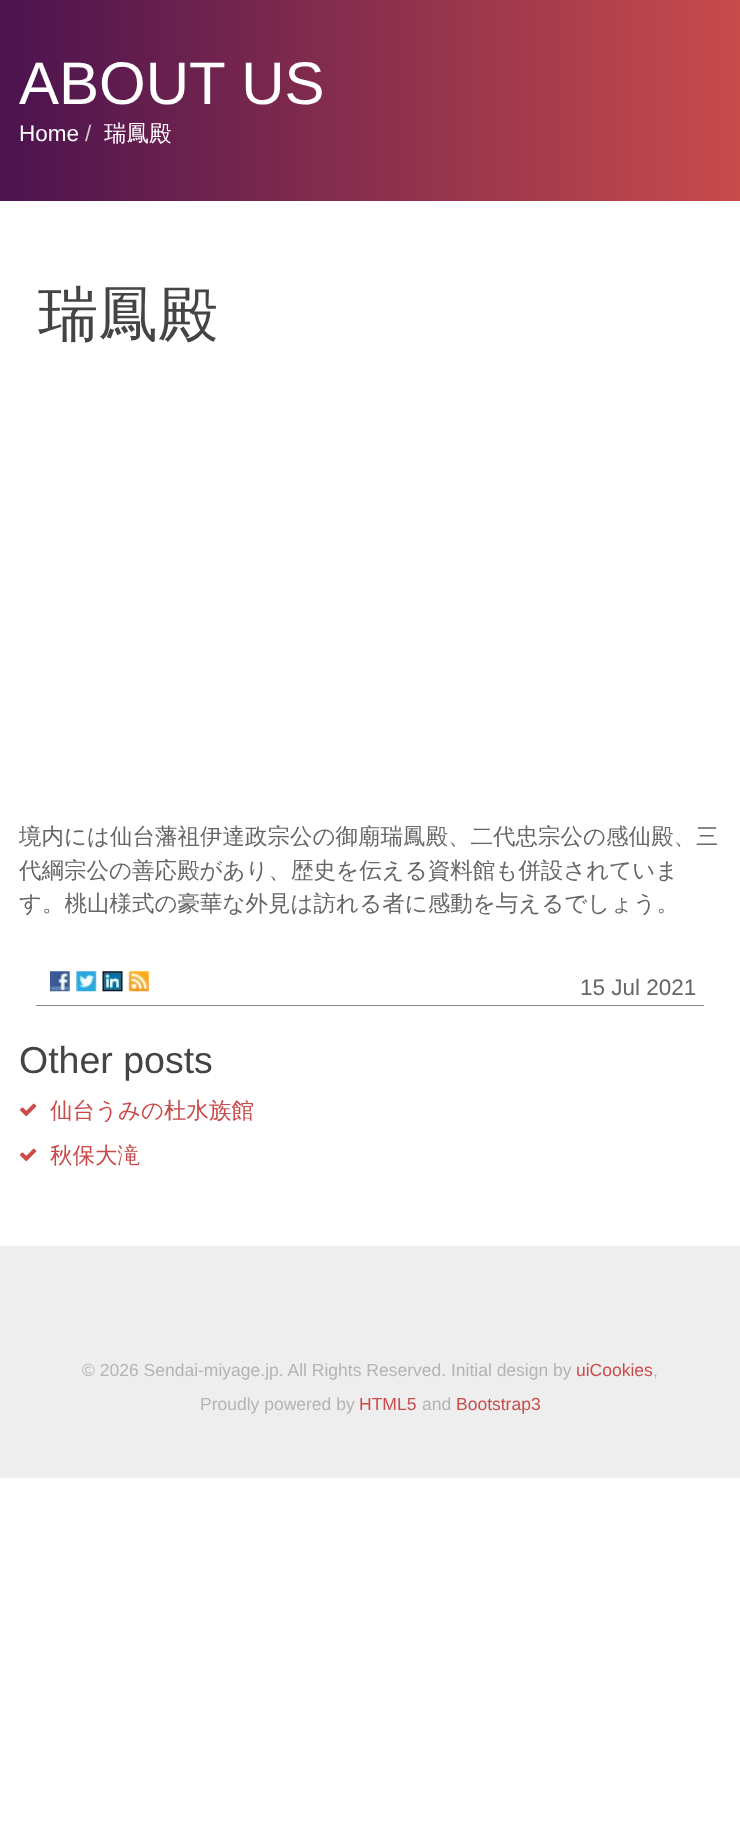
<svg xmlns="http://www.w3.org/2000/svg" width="740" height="1841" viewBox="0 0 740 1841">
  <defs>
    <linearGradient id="g1" gradientUnits="userSpaceOnUse" x1="0" y1="101" x2="740" y2="101"><stop offset="0" stop-color="#4b134f"/><stop offset="1" stop-color="#c94b4b"/></linearGradient>
  </defs>
  <rect width="100%" height="100%" fill="#fff"/>
  <path d="M0 0h740v201H0z" fill="url(#g1)"/>
  <image x="50" y="971" width="20" height="21" href="img/1.png"/>
  <image x="76" y="971" width="21" height="21" href="img/2.png"/>
  <image x="102" y="971" width="21" height="21" href="img/3.png"/>
  <image x="128" y="971" width="21" height="21" href="img/4.png"/>
  <path d="M36 1005h668v1H36z" fill="#888"/>
  <image x="20" y="1103" width="17" height="14" href="img/5.png"/>
  <image x="20" y="1148" width="17" height="14" href="img/5.png"/>
  <path d="M0 1246h740v232H0z" fill="#eee"/>
  <text x="19" y="104" font-family="Liberation Sans" font-size="60" fill="#fff">ABOUT US</text>
  <text x="19" y="141" font-family="Liberation Sans" font-size="22.5" fill="#fff">Home</text>
  <text x="85" y="141" font-family="Liberation Sans" font-size="22.5" fill="#ccc">/</text>
  <text x="104" y="141" font-family="WenQuanYi Zen Hei" font-size="22.5" font-weight="500" fill="#fff">瑞鳳殿</text>
  <text x="38" y="335" font-family="WenQuanYi Zen Hei" font-size="60" font-weight="500" fill="#444">瑞鳳殿</text>
  <g font-family="WenQuanYi Zen Hei" font-size="22.5" font-weight="500" fill="#666">
    <text x="19" y="844">境内には仙台藩祖伊達政宗公の御廟瑞鳳殿、二代忠宗公の感仙殿、三</text>
    <text x="19" y="878">代綱宗公の善応殿があり、歴史を伝える資料館も併設されていま</text>
    <text x="19" y="911">す。桃山様式の豪華な外見は訪れる者に感動を与えるでしょう。</text>
  </g>
  <text x="580" y="995" font-family="Liberation Sans" font-size="22.5" fill="#666">15 Jul 2021</text>
  <text x="19" y="1073" font-family="Liberation Sans" font-size="37.5" fill="#444">Other posts</text>
  <g font-family="WenQuanYi Zen Hei" font-size="22.5" font-weight="500" fill="#c94b4b">
    <text x="50" y="1118">仙台うみの杜水族館</text>
    <text x="50" y="1163">秋保大滝</text>
  </g>
  <text x="82" y="1376" font-family="Liberation Sans" font-size="17.5" fill="#b4b4b4">© 2026 Sendai-miyage.jp. All Rights Reserved. Initial design by</text>
  <text x="576" y="1376" font-family="Liberation Sans" font-size="17.5" fill="#c94b4b">uiCookies</text>
  <g font-family="Liberation Sans" font-size="17.5" fill="#b4b4b4">
    <text x="653" y="1376">,</text>
    <text x="200" y="1410">Proudly powered by</text>
  </g>
  <text x="359" y="1410" font-family="Liberation Sans" font-size="17.5" fill="#c94b4b">HTML5</text>
  <text x="422" y="1410" font-family="Liberation Sans" font-size="17.5" fill="#b4b4b4">and</text>
  <text x="456" y="1410" font-family="Liberation Sans" font-size="17.5" fill="#c94b4b">Bootstrap3</text>
</svg>
